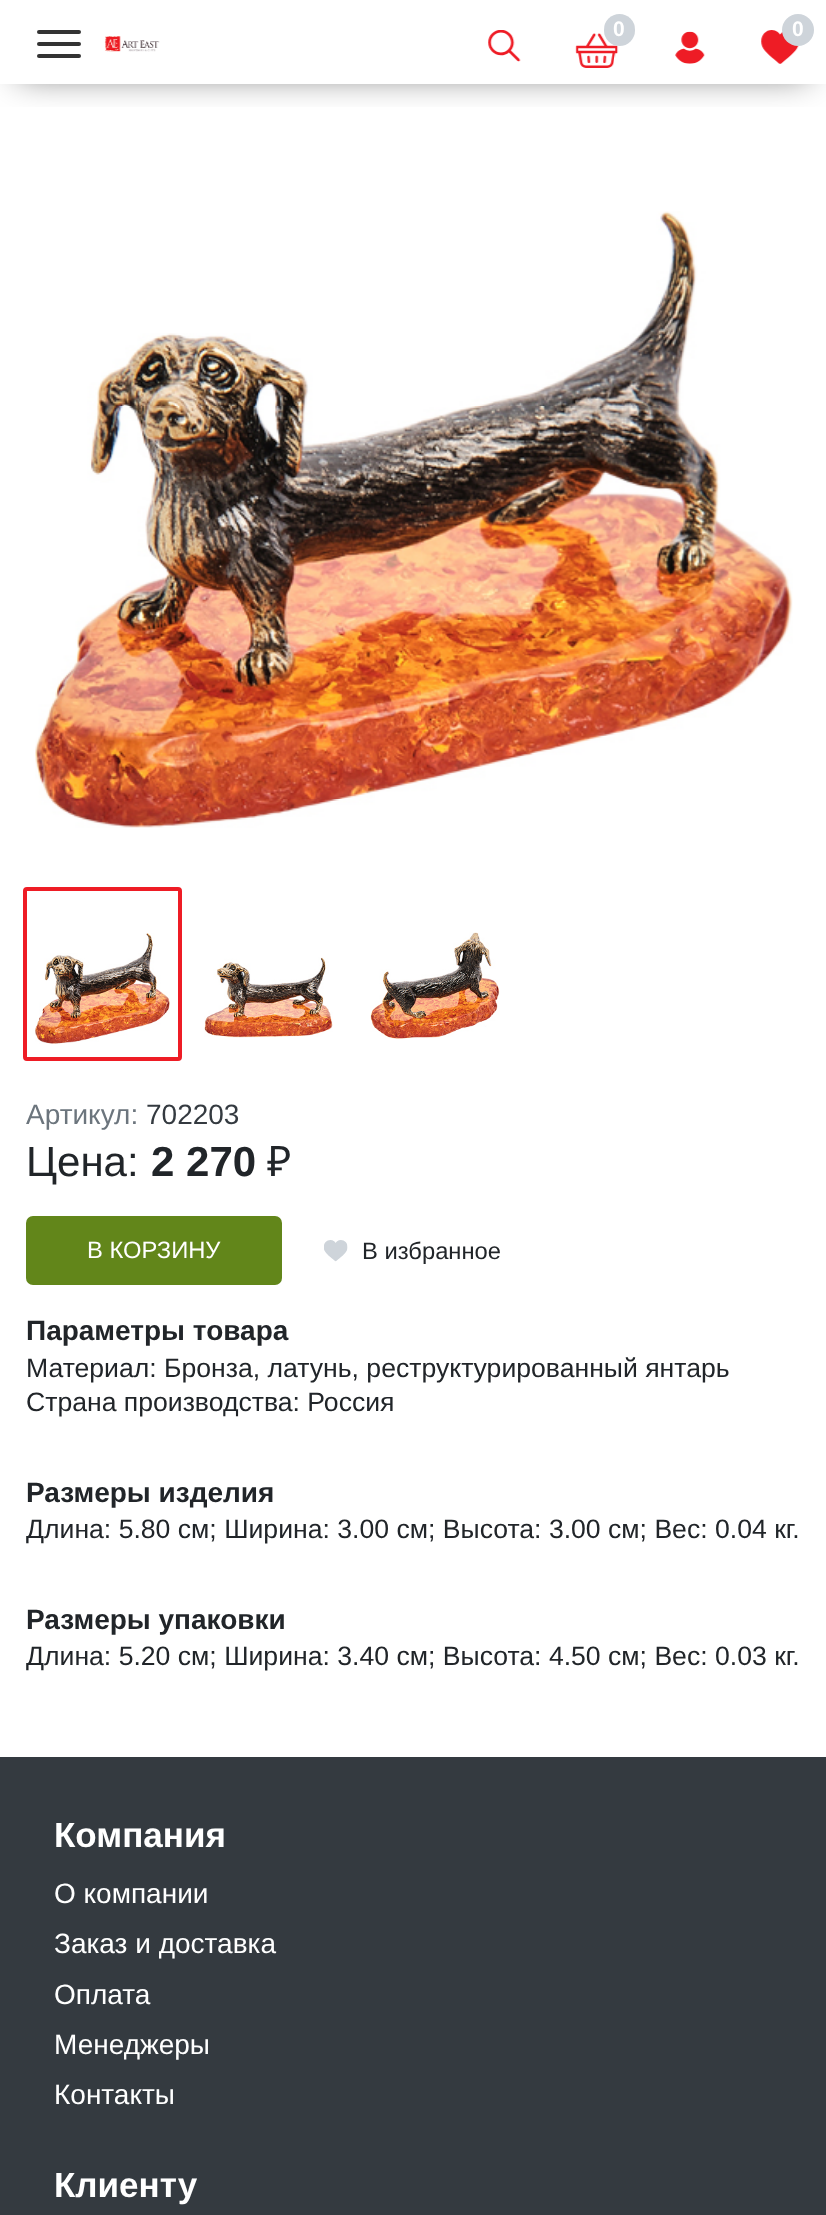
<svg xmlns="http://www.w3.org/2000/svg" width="826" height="2215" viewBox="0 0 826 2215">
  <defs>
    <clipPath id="clip1"><path d="M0 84h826v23H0z"/></clipPath>
  </defs>
  <rect width="100%" height="100%" fill="#fff"/>
  <g clip-path="url(#clip1)">
    <path d="M18 26h791v49H18z" fill="#00000099" filter="blur(17.5px)"/>
  </g>
  <rect x="37" y="30" width="44" height="4" rx="2" fill="#333"/>
  <rect x="37" y="42" width="44" height="4" rx="2" fill="#333"/>
  <rect x="37" y="54" width="44" height="4" rx="2" fill="#333"/>
  <image x="104" y="36" width="56" height="16" href="img/1.png"/>
  <image x="488" y="30" width="33" height="32" href="img/2.png"/>
  <image x="575" y="33" width="44" height="35" href="img/3.png"/>
  <rect x="604" y="14" width="31" height="32" rx="15.5" fill="#ced4da"/>
  <image x="675" y="31" width="30" height="33" href="img/4.png"/>
  <image x="761" y="30" width="38" height="34" href="img/5.png"/>
  <circle cx="798" cy="30" r="16" fill="#ced4da"/>
  <image x="35" y="211" width="758" height="617" href="img/6.png"/>
  <rect x="25" y="889" width="155" height="170" rx="2" fill="none" stroke="#ee1c25" stroke-width="4"/>
  <image x="35" y="933" width="135" height="111" href="img/7.png"/>
  <image x="204" y="957" width="129" height="81" href="img/8.png"/>
  <image x="370" y="932" width="130" height="107" href="img/9.png"/>
  <rect x="26" y="1216" width="256" height="69" rx="7" fill="#62861a"/>
  <image x="324" y="1240" width="24" height="22" href="img/10.png"/>
  <path d="M0 1757h826v458H0z" fill="#343a40"/>
  <g font-family="Liberation Sans" font-size="21" font-weight="bold" fill="#fff">
    <text x="613" y="36">0</text>
    <text x="792" y="36">0</text>
  </g>
  <text x="26" y="1124" font-family="Liberation Sans" font-size="28" fill="#6c757d">Артикул:</text>
  <text x="146" y="1124" font-family="Liberation Sans" font-size="28" fill="#343a40">702203</text>
  <text x="26" y="1176" font-family="Liberation Sans" font-size="42" fill="#212529">Цена:</text>
  <text x="151" y="1176" font-family="Liberation Sans" font-size="42" font-weight="bold" fill="#212529">2 270</text>
  <text x="267" y="1176" font-family="Noto Sans" font-size="42" fill="#212529">₽</text>
  <text x="87" y="1258" font-family="Liberation Sans" font-size="23.75" fill="#fff">В КОРЗИНУ</text>
  <text x="362" y="1259" font-family="Liberation Sans" font-size="23.75" fill="#212529">В избранное</text>
  <text x="26" y="1340" font-family="Liberation Sans" font-size="28" font-weight="bold" fill="#212529">Параметры товара</text>
  <g font-family="Liberation Sans" font-size="26.6" fill="#212529">
    <text x="26" y="1377">Материал: Бронза, латунь, реструктурированный янтарь</text>
    <text x="26" y="1411">Страна производства: Россия</text>
  </g>
  <text x="26" y="1502" font-family="Liberation Sans" font-size="28" font-weight="bold" fill="#212529">Размеры изделия</text>
  <text x="26" y="1538" font-family="Liberation Sans" font-size="26.6" fill="#212529">Длина: 5.80 см; Ширина: 3.00 см; Высота: 3.00 см; Вес: 0.04 кг.</text>
  <text x="26" y="1629" font-family="Liberation Sans" font-size="28" font-weight="bold" fill="#212529">Размеры упаковки</text>
  <text x="26" y="1665" font-family="Liberation Sans" font-size="26.6" fill="#212529">Длина: 5.20 см; Ширина: 3.40 см; Высота: 4.50 см; Вес: 0.03 кг.</text>
  <text x="54" y="1847" font-family="Liberation Sans" font-size="35" font-weight="bold" fill="#fff">Компания</text>
  <g font-family="Liberation Sans" font-size="28" fill="#fff">
    <text x="54" y="1903">О компании</text>
    <text x="54" y="1953">Заказ и доставка</text>
    <text x="54" y="2004">Оплата</text>
    <text x="54" y="2054">Менеджеры</text>
    <text x="54" y="2104">Контакты</text>
  </g>
  <text x="54" y="2197" font-family="Liberation Sans" font-size="35" font-weight="bold" fill="#fff">Клиенту</text>
</svg>
